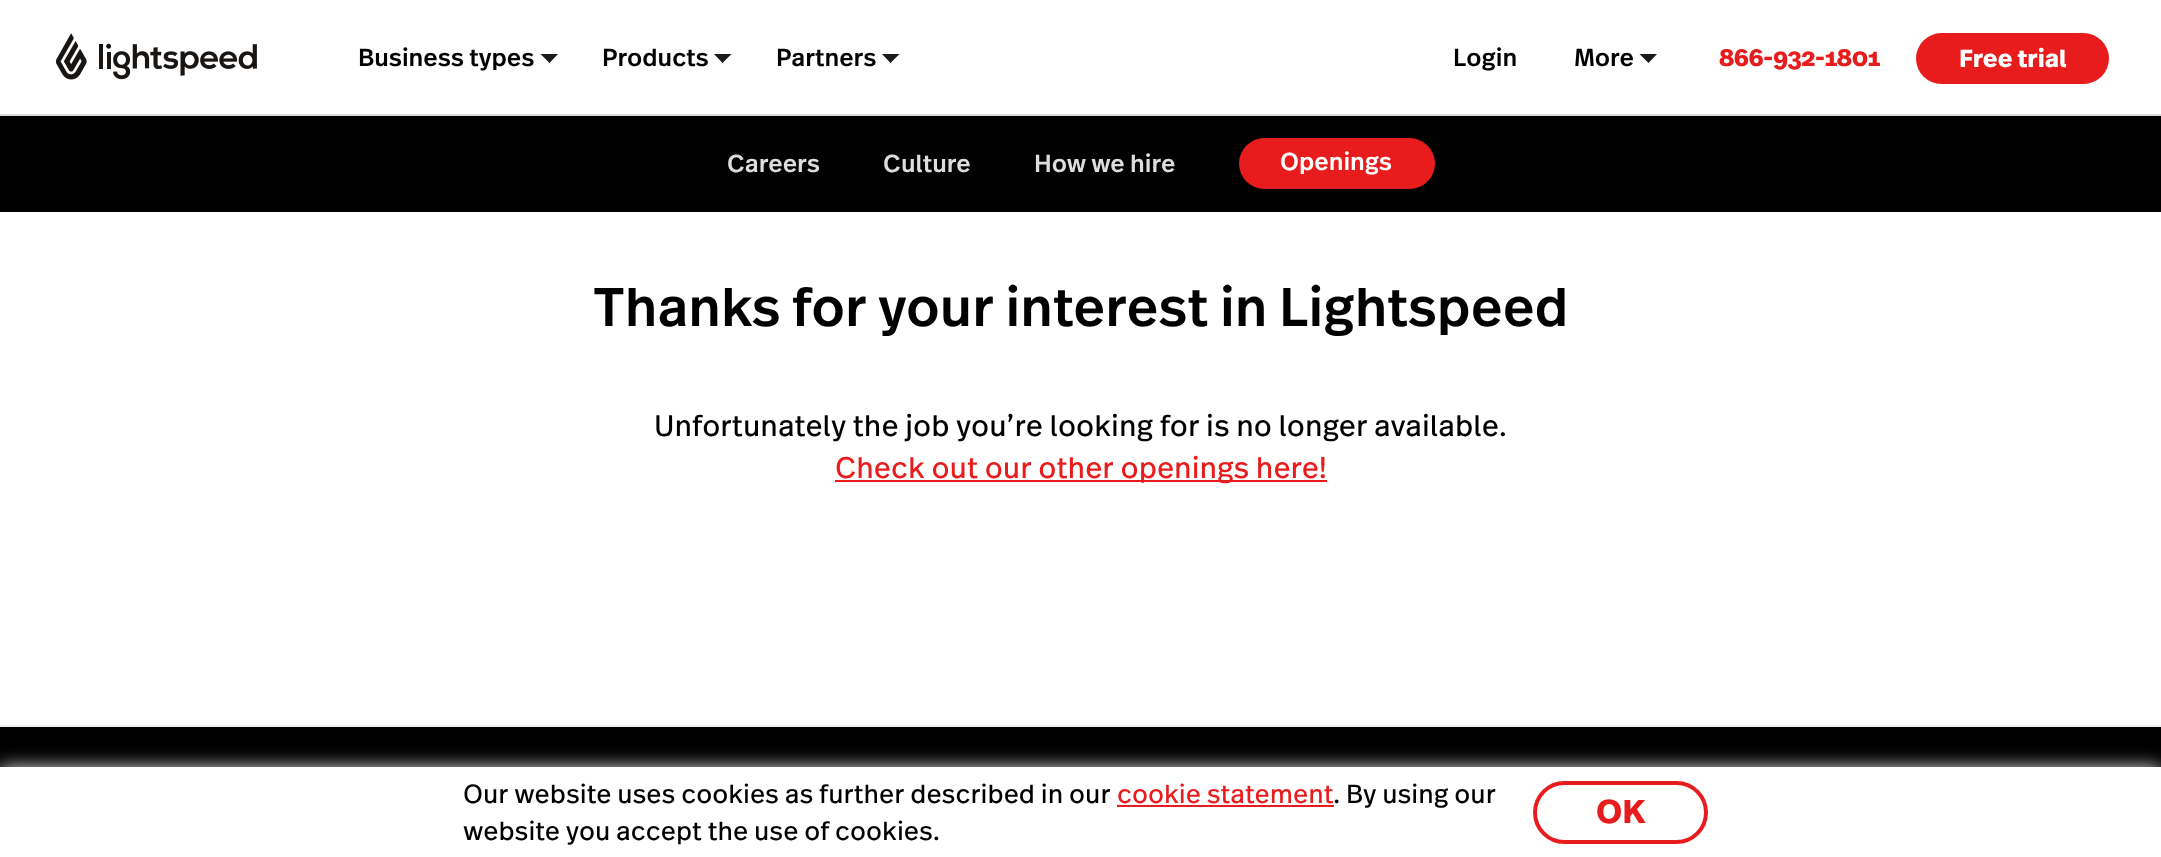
<svg xmlns="http://www.w3.org/2000/svg" width="2161" height="857" viewBox="0 0 2161 857">
  <rect width="100%" height="100%" fill="#fff"/>
  <path d="M0 114h2161v2H0z" fill="#ddd"/>
  <image x="55" y="33" width="202" height="47" href="img/1.png"/>
  <path d="M540.5 54L549.5 63L558 54Z" fill="#1a1a1a"/>
  <path d="M714 54L722.5 63L731.5 54Z" fill="#1a1a1a"/>
  <path d="M882 54L890.5 63L899.5 54Z" fill="#1a1a1a"/>
  <path d="M1639.5 54L1648.5 63L1657 54Z" fill="#1a1a1a"/>
  <rect x="1916" y="33" width="193" height="51" rx="25.5" fill="#e81c1c"/>
  <path d="M0 116h2161v96H0z" fill="#000"/>
  <rect x="1239" y="138" width="196" height="51" rx="25.5" fill="#e81c1c"/>
  <path d="M835 480h492v2H835z" fill="#e81c1c"/>
  <path d="M0 727h2161v40H0z" fill="#000"/>
  <path d="M0 725h2161v2H0z" fill="#f0f0f0"/>
  <path d="M0 767h2161v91H0z" fill="#ddd" filter="blur(9px)"/>
  <path d="M0 767h2161v90H0z" fill="#fff"/>
  <path d="M1117 805h217v2H1117z" fill="#e81c1c"/>
  <rect x="1535" y="783" width="171" height="59" rx="29.5" fill="none" stroke="#e81c1c" stroke-width="4"/>
  <g font-family="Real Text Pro" font-size="24.5" font-weight="500" fill="#000">
    <text x="358" y="66">Business types</text>
    <text x="602" y="66">Products</text>
    <text x="776" y="66">Partners</text>
    <text x="1453" y="66">Login</text>
    <text x="1574" y="66">More</text>
  </g>
  <text x="1719" y="66" font-family="Real Text Pro" font-size="24.5" font-weight="bold" fill="#e81c1c">866-932-1801</text>
  <text x="1959" y="67" font-family="Real Text Pro" font-size="24.5" font-weight="bold" fill="#fff">Free trial</text>
  <g font-family="Real Text Pro" font-size="24.5" font-weight="500" fill="#ddd">
    <text x="727" y="172">Careers</text>
    <text x="883" y="172">Culture</text>
    <text x="1034" y="172">How we hire</text>
  </g>
  <text x="1280" y="170" font-family="Real Text Pro" font-size="24.5" font-weight="500" fill="#fff">Openings</text>
  <text x="593" y="326" font-family="Real Text Pro" font-size="54.25" font-weight="500" fill="#000">Thanks for your interest in Lightspeed</text>
  <text x="654" y="436" font-family="Real Text Pro" font-size="29.75" fill="#000">Unfortunately the job you’re looking for is no longer available.</text>
  <text x="835" y="478" font-family="Real Text Pro" font-size="29.75" fill="#e81c1c">Check out our other openings here!</text>
  <text x="463" y="803" font-family="Real Text Pro" font-size="26.25" fill="#000">Our website uses cookies as further described in our</text>
  <text x="1117" y="803" font-family="Real Text Pro" font-size="26.25" fill="#e81c1c">cookie statement</text>
  <g font-family="Real Text Pro" font-size="26.25" fill="#000">
    <text x="1333" y="803">. By using our</text>
    <text x="463" y="840">website you accept the use of cookies.</text>
  </g>
  <text x="1596" y="823" font-family="Real Text Pro" font-size="33" font-weight="bold" fill="#e81c1c">OK</text>
</svg>
